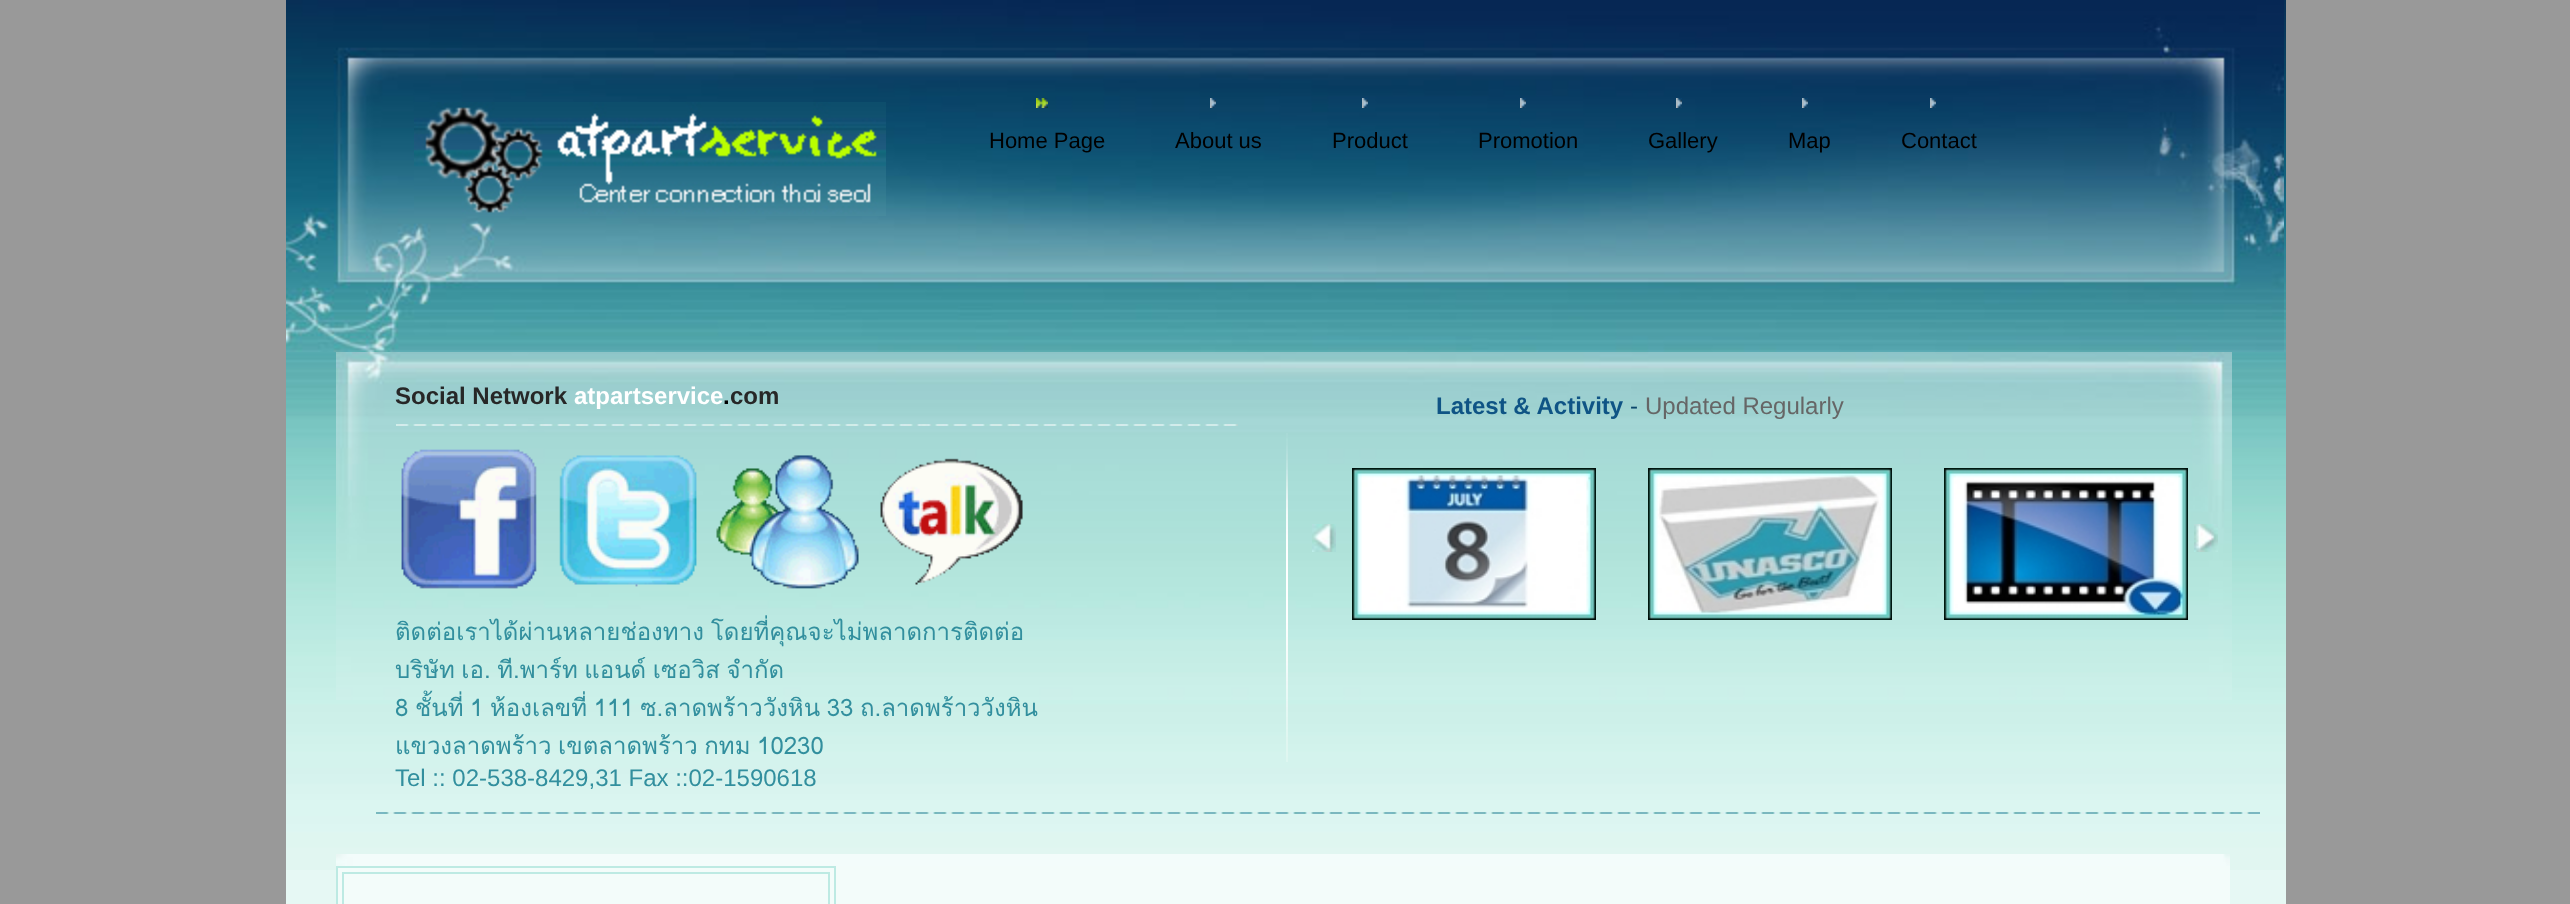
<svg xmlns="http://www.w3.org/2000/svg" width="2570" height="904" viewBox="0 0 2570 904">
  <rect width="100%" height="100%" fill="#999"/>
  <path d="M286 870h2000v34H286z" fill="#e6f8f4"/>
  <image x="286" y="0" width="2000" height="870" href="img/1.png"/>
  <image x="286" y="0" width="674" height="352" href="img/2.png"/>
  <image x="414" y="102" width="472" height="114" href="img/3.png"/>
  <image x="960" y="0" width="1324" height="352" href="img/4.png"/>
  <image x="1036" y="98" width="12" height="10" href="img/5.png"/>
  <image x="1210" y="98" width="6" height="10" href="img/6.png"/>
  <image x="1362" y="98" width="6" height="10" href="img/6.png"/>
  <image x="1520" y="98" width="6" height="10" href="img/6.png"/>
  <image x="1676" y="98" width="6" height="10" href="img/6.png"/>
  <image x="1802" y="98" width="6" height="10" href="img/6.png"/>
  <image x="1930" y="98" width="6" height="10" href="img/6.png"/>
  <image x="336" y="352" width="1896" height="348" href="img/7.png"/>
  <image x="396" y="424" width="842" height="2" href="img/8.png"/>
  <image x="401" y="449" width="622" height="140" href="img/9.png"/>
  <image x="1312" y="524" width="24" height="28" href="img/10.png"/>
  <image x="1352" y="468" width="244" height="152" href="img/11.png"/>
  <image x="1648" y="468" width="244" height="152" href="img/12.png"/>
  <image x="1944" y="468" width="244" height="152" href="img/13.png"/>
  <image x="2194" y="524" width="24" height="28" href="img/14.png"/>
  <image x="1286" y="433" width="2" height="329" href="img/15.png"/>
  <image x="376" y="812" width="1884" height="2" href="img/16.png"/>
  <image x="336" y="854" width="1894" height="12" href="img/17.png"/>
  <path d="M338 866h1892v38H338z" fill="#f3fcfa"/>
  <path d="M337 867h498v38H337z" fill="none" stroke="#bdeae3" stroke-width="2"/>
  <path d="M343 873h486v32H343z" fill="none" stroke="#bdeae3" stroke-width="2"/>
  <g font-family="Liberation Sans" font-size="22" fill="#000">
    <text x="989" y="148">Home Page</text>
    <text x="1175" y="148">About us</text>
    <text x="1332" y="148">Product</text>
    <text x="1478" y="148">Promotion</text>
    <text x="1648" y="148">Gallery</text>
    <text x="1788" y="148">Map</text>
    <text x="1901" y="148">Contact</text>
  </g>
  <text x="395" y="404" font-family="Liberation Sans" font-size="24" font-weight="bold" fill="#272727">Social Network</text>
  <text x="574" y="404" font-family="Liberation Sans" font-size="24" font-weight="bold" fill="#fff">atpartservice</text>
  <text x="723" y="404" font-family="Liberation Sans" font-size="24" font-weight="bold" fill="#000">.</text>
  <text x="730" y="404" font-family="Liberation Sans" font-size="24" font-weight="bold" fill="#272727">com</text>
  <g font-family="Loma" font-size="24" fill="#328f9e">
    <text x="395" y="640" word-spacing="-1">ติดต่อเราได้ผ่านหลายช่องทาง โดยที่คุณจะไม่พลาดการติดต่อ</text>
    <text x="395" y="678" word-spacing="-1.5">บริษัท เอ. ที.พาร์ท แอนด์ เซอวิส จำกัด</text>
    <text x="395" y="716" word-spacing="-1.5">8 ชั้นที่ 1 ห้องเลขที่ 111 ซ.ลาดพร้าววังหิน 33 ถ.ลาดพร้าววังหิน</text>
    <text x="395" y="754" word-spacing="-1.5">แขวงลาดพร้าว เขตลาดพร้าว กทม 10230</text>
  </g>
  <text x="395" y="786" font-family="Liberation Sans" font-size="24" fill="#328f9e">Tel :: 02-538-8429,31 Fax ::02-1590618</text>
  <text x="1436" y="414" font-family="Liberation Sans" font-size="24" font-weight="bold" fill="#0f5485">Latest &amp; Activity</text>
  <text x="1630" y="414" font-family="Liberation Sans" font-size="24" fill="#0b476b">-</text>
  <text x="1645" y="414" font-family="Liberation Sans" font-size="24" fill="#666">Updated Regularly</text>
</svg>
